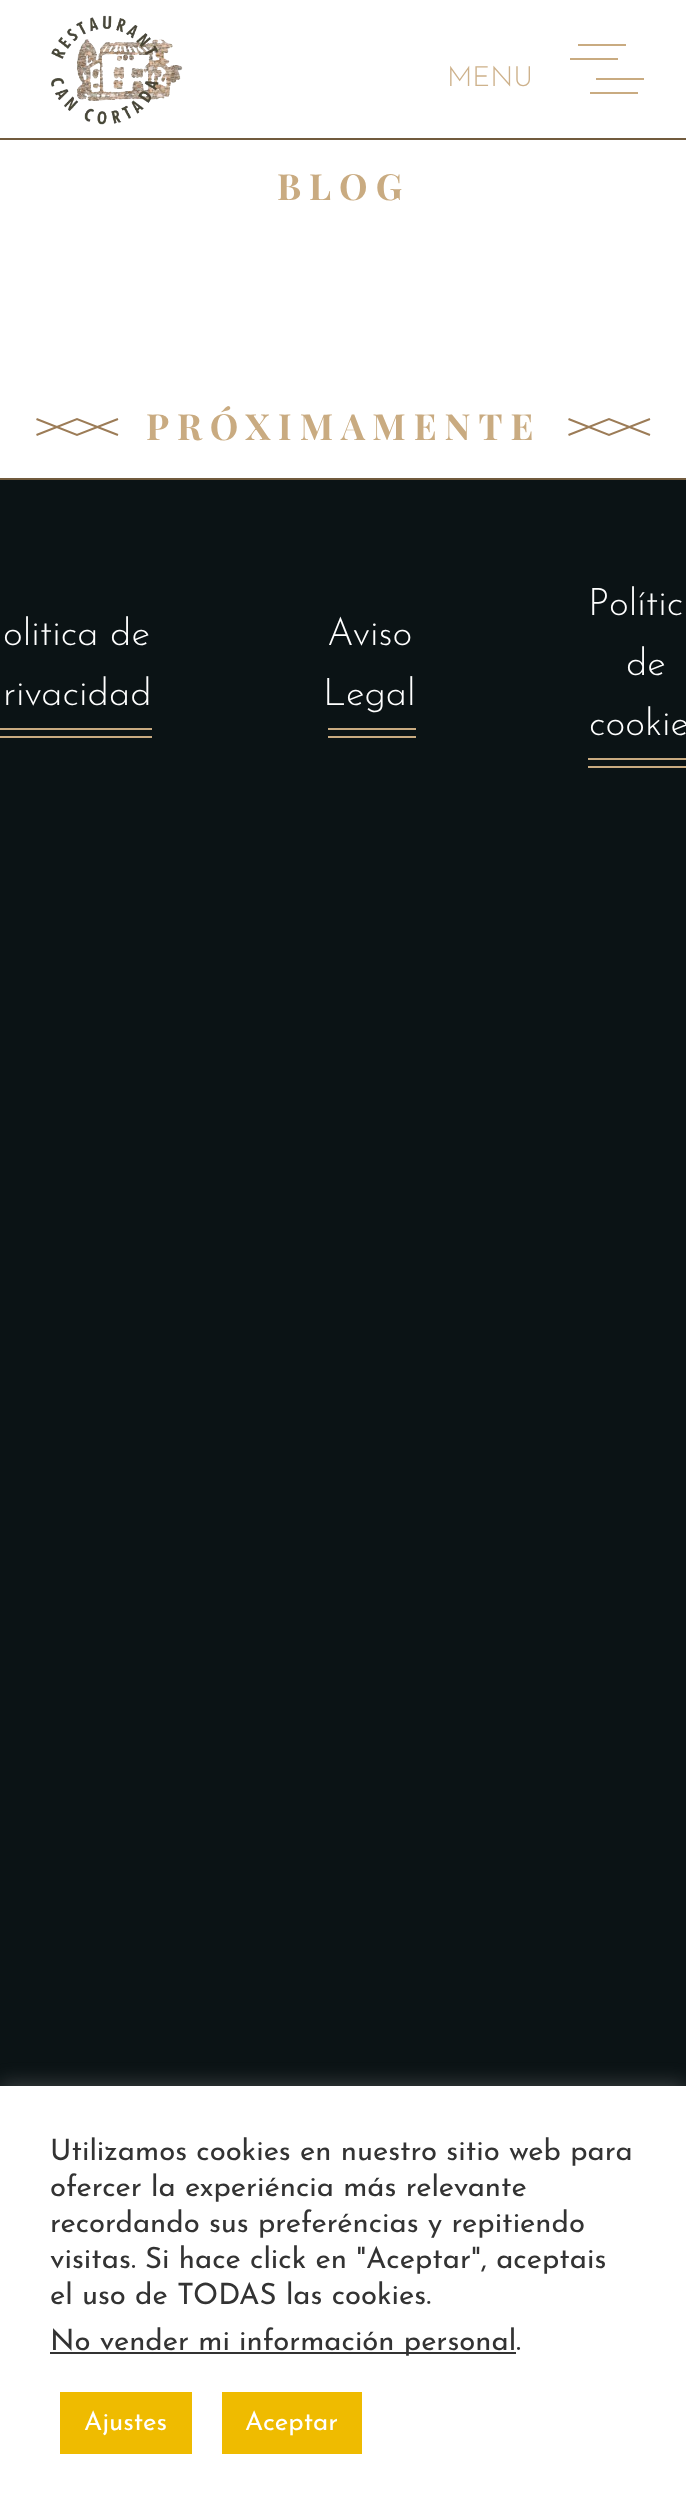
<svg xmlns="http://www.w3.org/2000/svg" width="686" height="2514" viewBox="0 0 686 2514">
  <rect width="100%" height="100%" fill="#0b1315"/>
  <path d="M0 0h686v138H0z" fill="#fff"/>
  <path d="M0 138h686v2H0z" fill="#715b3e"/>
  <image x="51" y="15" width="132" height="110" href="img/1.png"/>
  <path d="M578 44h48v2H578z" fill="#c9ab81"/>
  <path d="M570 58h48v2H570z" fill="#c9ab81"/>
  <path d="M596 78h48v2H596z" fill="#c9ab81"/>
  <path d="M590 92h48v2H590z" fill="#c9ab81"/>
  <path d="M0 140h686v338H0z" fill="#fff"/>
  <path d="M118 435L77 419L36.5 435" fill="none" stroke="#9c7c57" stroke-width="2"/>
  <path d="M118 419L77 435L36.5 419" fill="none" stroke="#9c7c57" stroke-width="2"/>
  <path d="M650 435L609 419L568.5 435" fill="none" stroke="#9c7c57" stroke-width="2"/>
  <path d="M650 419L609 435L568.5 419" fill="none" stroke="#9c7c57" stroke-width="2"/>
  <path d="M0 478h686v2H0z" fill="#715b3e"/>
  <path d="M0 728h152v2H0z" fill="#c9ab81"/>
  <path d="M0 736h152v2H0z" fill="#c9ab81"/>
  <path d="M328 728h88v2H328z" fill="#c9ab81"/>
  <path d="M328 736h88v2H328z" fill="#c9ab81"/>
  <path d="M588 758h98v2H588z" fill="#c9ab81"/>
  <path d="M588 766h98v2H588z" fill="#c9ab81"/>
  <path d="M0 2084h686v428H0z" fill="#acabab4d" filter="blur(10px)"/>
  <path d="M0 2086h686v428H0z" fill="#fff"/>
  <path d="M50 2352h466v2H50z" fill="#333"/>
  <path d="M60 2392h132v62H60z" fill="#efbb00"/>
  <path d="M222 2392h140v62H222z" fill="#efbb00"/>
  <text x="447" y="86" font-family="Josefin Sans" font-size="28" font-weight="300" fill="#ceb28c">MENU</text>
  <g font-family="Playfair Display" font-size="36" font-weight="bold" letter-spacing="8" fill="#c9ab81">
    <text x="277" y="200">BLOG</text>
    <text x="146" y="440">PRÓXIMAMENTE</text>
  </g>
  <g font-family="Josefin Sans" font-size="38" font-weight="300" fill="#fff">
    <text x="3" y="645">olitica de</text>
    <text x="3" y="705">rivacidad</text>
    <text x="327" y="645">Aviso</text>
    <text x="323" y="705">Legal</text>
    <text x="588" y="615">Polític</text>
    <text x="626" y="675">de</text>
    <text x="589" y="735">cookie</text>
  </g>
  <g font-family="Josefin Sans" font-size="29.3" fill="#333">
    <text x="50" y="2160">Utilizamos cookies en nuestro sitio web para</text>
    <text x="50" y="2196">ofercer la experiéncia más relevante</text>
    <text x="50" y="2232">recordando sus preferéncias y repitiendo</text>
    <text x="50" y="2268">visitas. Si hace click en "Aceptar", aceptais</text>
    <text x="50" y="2304">el uso de TODAS las cookies.</text>
    <text x="50" y="2350">No vender mi información personal</text>
    <text x="516" y="2350">.</text>
  </g>
  <g font-family="Josefin Sans" font-size="26" fill="#fff">
    <text x="84" y="2430">Ajustes</text>
    <text x="245" y="2430">Aceptar</text>
  </g>
</svg>
